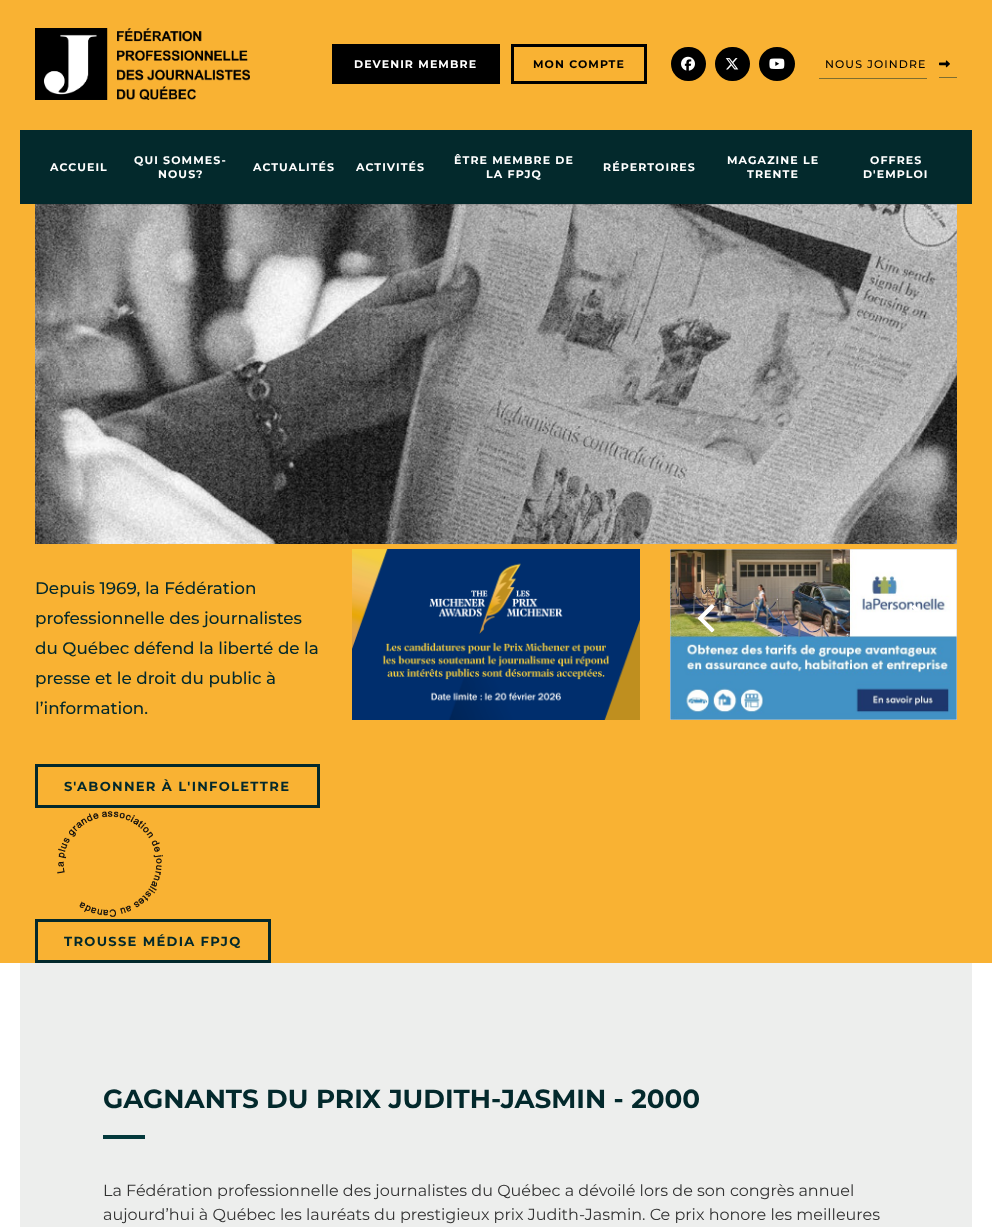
<svg xmlns="http://www.w3.org/2000/svg" width="992" height="1227" viewBox="0 0 992 1227">
  <rect width="100%" height="100%" fill="#fff"/>
  <path d="M0 0h992v963H0z" fill="#f9b233"/>
  <image x="35" y="28" width="215" height="72" href="img/1.png"/>
  <path d="M332 44h168v40H332z" fill="#000"/>
  <path d="M512.5 45.5h133v37H512.5z" fill="none" stroke="#000" stroke-width="3"/>
  <rect x="671" y="47" width="35" height="34" rx="17" fill="#000"/>
  <image x="681" y="56" width="14" height="15" href="img/2.png"/>
  <rect x="715" y="47" width="35" height="34" rx="17" fill="#000"/>
  <image x="725" y="58" width="14" height="12" href="img/3.png"/>
  <ellipse cx="777" cy="64" rx="18" ry="17" fill="#000"/>
  <image x="769" y="58" width="16" height="11" href="img/4.png"/>
  <path d="M819 78h108v1H819z" fill="#7e6e30"/>
  <path d="M939 77h18v1H939z" fill="#7e6e30"/>
  <image x="939" y="60" width="11" height="8" href="img/5.png"/>
  <path d="M20 130h952v74H20z" fill="#03292c"/>
  <image x="35" y="204" width="922" height="340" href="img/6.png"/>
  <path d="M36.5 765.5h282v41H36.5z" fill="none" stroke="#03292c" stroke-width="3"/>
  <image x="57" y="811" width="106" height="106" href="img/7.png"/>
  <path d="M36.5 920.5h233v41H36.5z" fill="none" stroke="#03292c" stroke-width="3"/>
  <image x="352" y="549" width="288" height="171" href="img/8.png"/>
  <image x="670" y="549" width="287" height="171" href="img/9.png"/>
  <image x="698" y="604" width="17" height="29" href="img/10.png"/>
  <image x="912" y="604" width="7" height="7" href="img/11.png"/>
  <path d="M20 963h952v264H20z" fill="#edeeed"/>
  <path d="M103 1135h42v4H103z" fill="#03393c"/>
  <text x="354" y="68" font-family="Montserrat" font-size="11" font-weight="bold" letter-spacing="1.1" fill="#fff">DEVENIR MEMBRE</text>
  <text x="533" y="68" font-family="Montserrat" font-size="11" font-weight="bold" letter-spacing="1.1" fill="#000">MON COMPTE</text>
  <text x="825" y="68" font-family="Montserrat" font-size="11" font-weight="500" letter-spacing="1.1" fill="#000">NOUS JOINDRE</text>
  <g font-family="Montserrat" font-size="11" font-weight="bold" letter-spacing="1.1" fill="#fff">
    <text x="50" y="171">ACCUEIL</text>
    <text x="134" y="164">QUI SOMMES-</text>
    <text x="158" y="178">NOUS?</text>
    <text x="253" y="171">ACTUALITÉS</text>
    <text x="356" y="171">ACTIVITÉS</text>
    <text x="454" y="164">ÊTRE MEMBRE DE</text>
    <text x="486" y="178">LA FPJQ</text>
    <text x="603" y="171">RÉPERTOIRES</text>
    <text x="727" y="164">MAGAZINE LE</text>
    <text x="747" y="178">TRENTE</text>
    <text x="870" y="164">OFFRES</text>
    <text x="863" y="178">D'EMPLOI</text>
  </g>
  <g font-family="Montserrat" font-size="16.8" font-weight="500" fill="#03292c">
    <text x="35" y="594">Depuis 1969, la Fédération</text>
    <text x="35" y="624">professionnelle des journalistes</text>
    <text x="35" y="654">du Québec défend la liberté de la</text>
    <text x="35" y="684">presse et le droit du public à</text>
    <text x="35" y="714">l’information.</text>
  </g>
  <g font-family="Montserrat" font-size="13.1" font-weight="bold" letter-spacing="1.3" fill="#03292c">
    <text x="64" y="791">S'ABONNER À L'INFOLETTRE</text>
    <text x="64" y="946">TROUSSE MÉDIA FPJQ</text>
  </g>
  <text x="103" y="1108" font-family="Montserrat" font-size="26.25" font-weight="bold" fill="#03292c">GAGNANTS DU PRIX JUDITH-JASMIN - 2000</text>
  <g font-family="Montserrat" font-size="16" fill="#333">
    <text x="103" y="1196">La Fédération professionnelle des journalistes du Québec a dévoilé lors de son congrès annuel</text>
    <text x="103" y="1220">aujourd’hui à Québec les lauréats du prestigieux prix Judith-Jasmin. Ce prix honore les meilleures</text>
  </g>
</svg>
